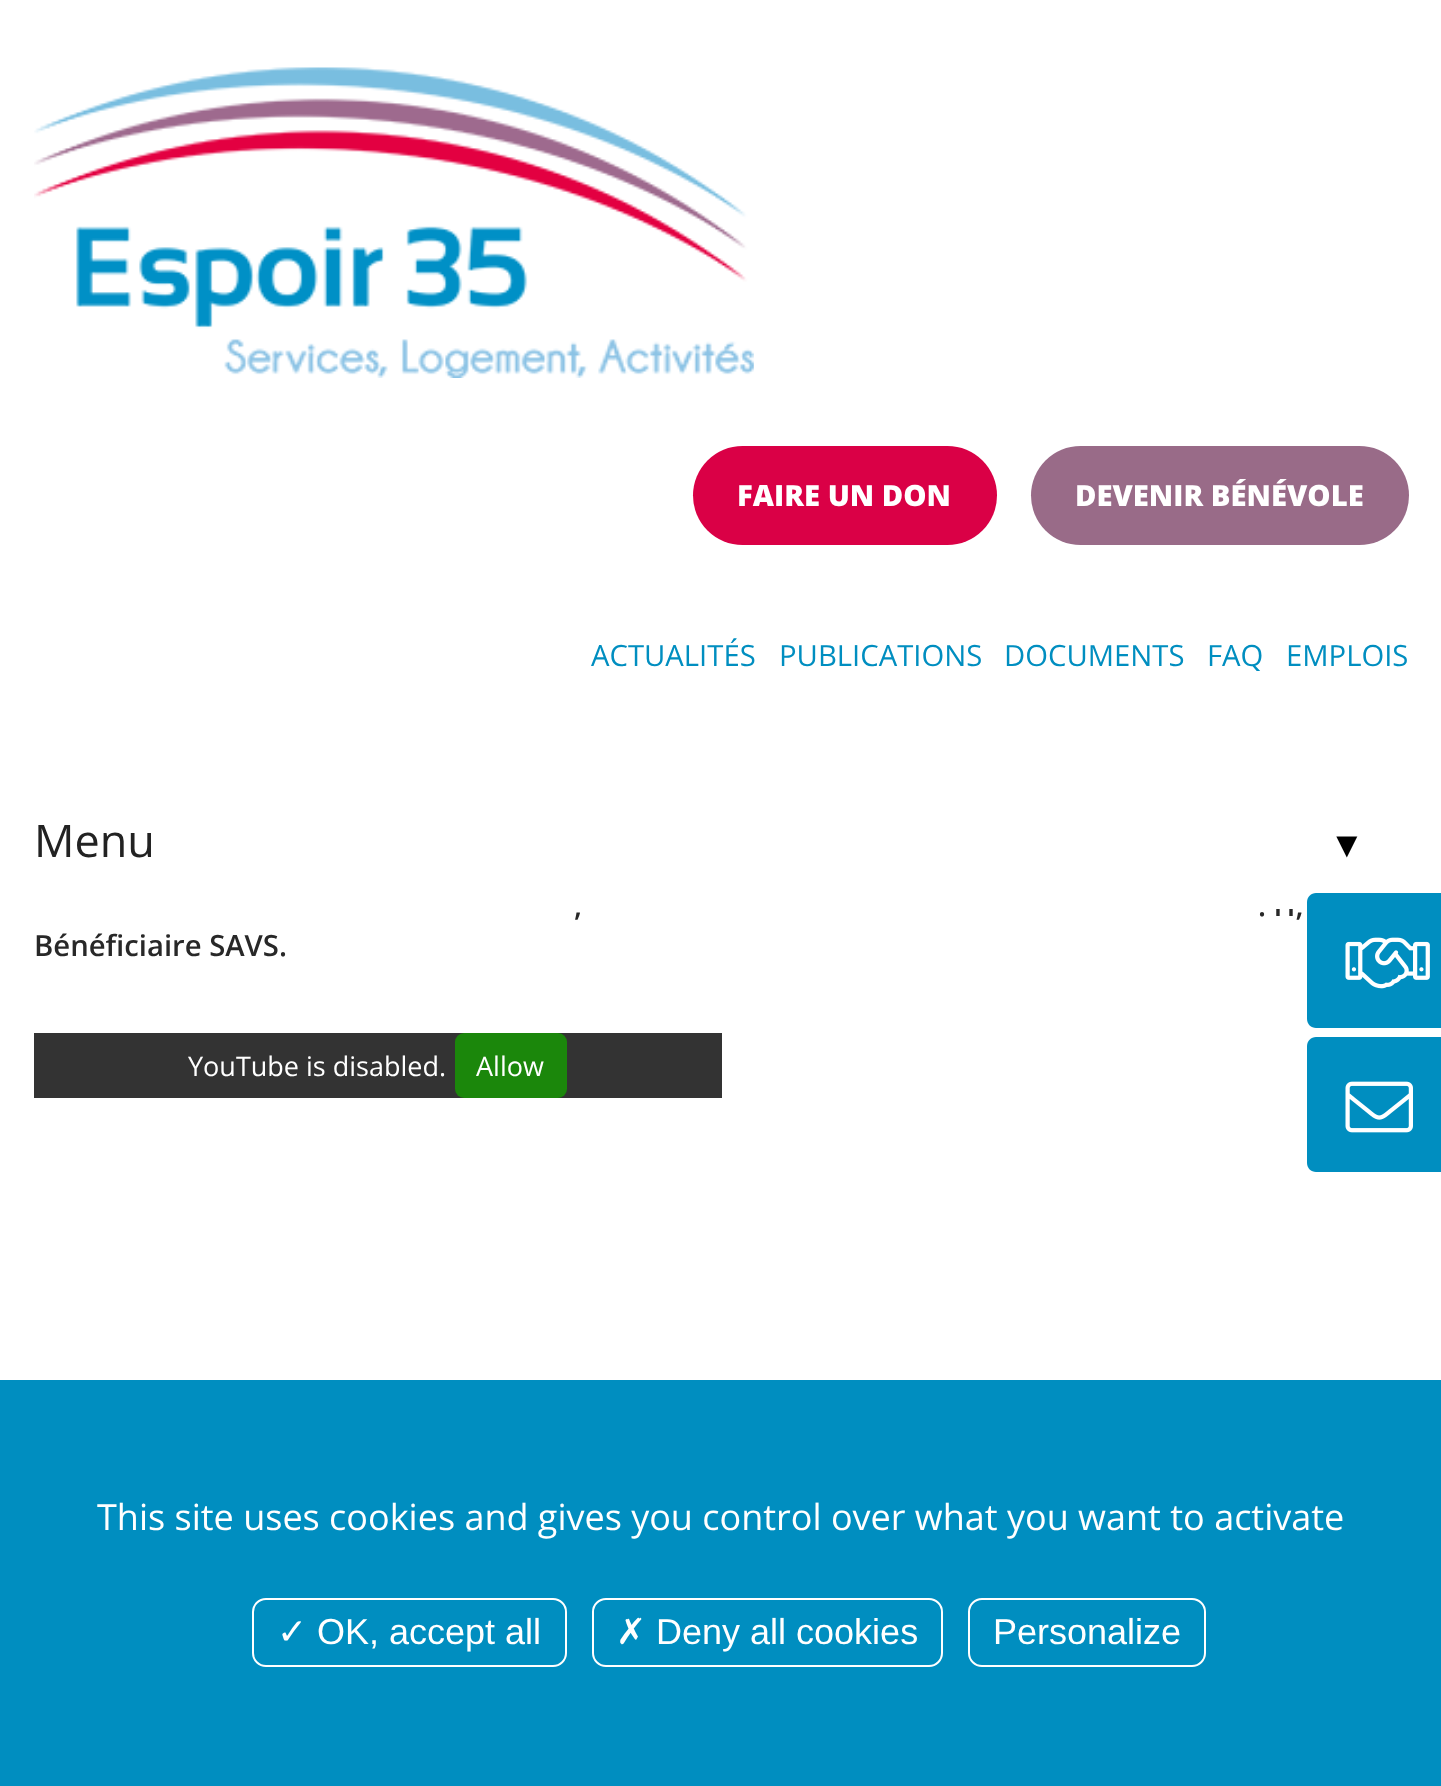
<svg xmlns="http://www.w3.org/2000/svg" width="1441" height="1786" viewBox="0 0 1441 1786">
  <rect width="100%" height="100%" fill="#fff"/>
  <image x="34" y="67" width="720" height="311" href="img/1.png"/>
  <rect x="693" y="446" width="304" height="99" rx="49.5" fill="#da0046"/>
  <rect x="1031" y="446" width="378" height="99" rx="49.5" fill="#996b88"/>
  <path d="M34 1033h688v65H34z" fill="#333"/>
  <rect x="455" y="1033" width="112" height="65" rx="9" fill="#1b870b"/>
  <path d="M1316 893H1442V1028H1316C1311 1028 1307 1024 1307 1019V902C1307 897 1311 893 1316 893Z" fill="#008ec0"/>
  <image x="1345" y="937" width="85" height="52" href="img/2.png"/>
  <path d="M1316 1037H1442V1172H1316C1311 1172 1307 1168 1307 1163V1046C1307 1041 1311 1037 1316 1037Z" fill="#008ec0"/>
  <image x="1345" y="1081" width="68" height="52" href="img/3.png"/>
  <path d="M0 1380h1441v406H0z" fill="#008ec0"/>
  <rect x="253" y="1599" width="313" height="67" rx="13" fill="none" stroke="#fff" stroke-width="2"/>
  <rect x="593" y="1599" width="349" height="67" rx="13" fill="none" stroke="#fff" stroke-width="2"/>
  <rect x="969" y="1599" width="236" height="67" rx="13" fill="none" stroke="#fff" stroke-width="2"/>
  <g font-family="Open Sans" font-size="29.25" font-weight="800" fill="#fff">
    <text x="737" y="506">FAIRE UN DON</text>
    <text x="1075" y="506">DEVENIR BÉNÉVOLE</text>
  </g>
  <g font-family="Open Sans" font-size="29.25" fill="#008ec0">
    <text x="591" y="666">ACTUALITÉS</text>
    <text x="779" y="666">PUBLICATIONS</text>
    <text x="1004" y="666">DOCUMENTS</text>
    <text x="1207" y="666">FAQ</text>
    <text x="1286" y="666">EMPLOIS</text>
  </g>
  <text x="34" y="857" font-family="Open Sans" font-size="45" fill="#222">Menu</text>
  <text x="1329" y="857" font-family="Liberation Sans" font-size="36" font-style="italic" fill="#000">▼</text>
  <g font-family="Open Sans" font-size="29.25" font-weight="600" fill="#282828">
    <text x="574" y="916">,</text>
    <text x="1258" y="916">. H,</text>
  </g>
  <path d="M1276 895h17v14H1276z" fill="#fff"/>
  <text x="34" y="956" font-family="Open Sans" font-size="29.25" font-weight="600" fill="#282828">Bénéficiaire SAVS.</text>
  <g font-family="Open Sans" font-size="27" fill="#fff">
    <text x="188" y="1076">YouTube is disabled.</text>
    <text x="476" y="1076">Allow</text>
  </g>
  <text x="97" y="1530" font-family="Open Sans" font-size="36" fill="#fff">This site uses cookies and gives you control over what you want to activate</text>
  <text x="277" y="1644" font-family="DejaVu Sans" font-size="36" fill="#fff">✓</text>
  <text x="317" y="1644" font-family="Liberation Sans" font-size="36" fill="#fff">OK, accept all</text>
  <text x="616" y="1644" font-family="DejaVu Sans" font-size="36" fill="#fff">✗</text>
  <g font-family="Liberation Sans" font-size="36" fill="#fff">
    <text x="656" y="1644">Deny all cookies</text>
    <text x="993" y="1644">Personalize</text>
  </g>
</svg>
